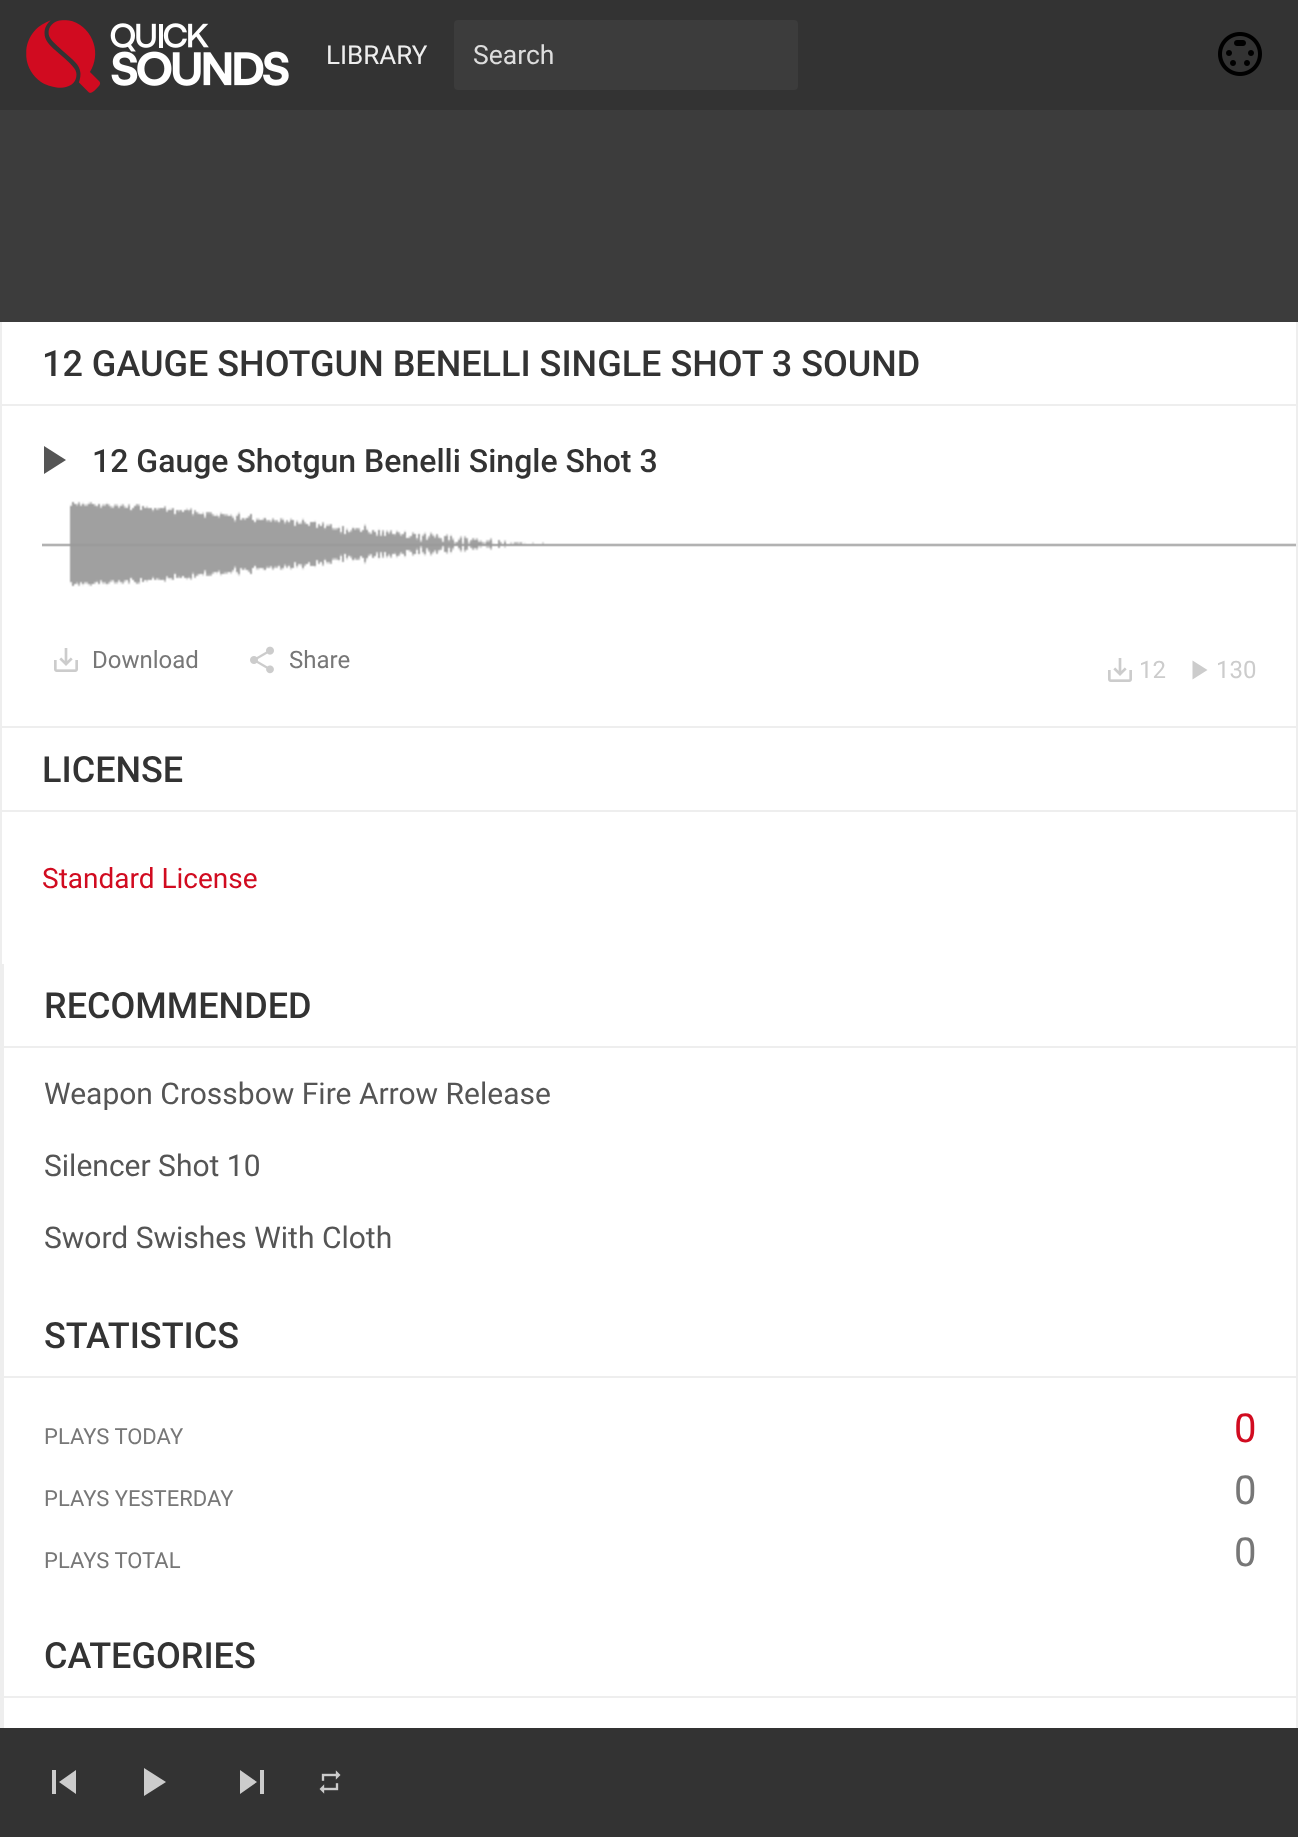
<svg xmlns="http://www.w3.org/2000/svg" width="1298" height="1837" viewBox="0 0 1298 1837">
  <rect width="100%" height="100%" fill="#fff"/>
  <path d="M0 0h1298v110H0z" fill="#333"/>
  <image x="26" y="20" width="263" height="73" href="img/1.png"/>
  <rect x="454" y="20" width="344" height="70" rx="4" fill="#3c3c3c"/>
  <image x="1218" y="32" width="44" height="44" href="img/2.png"/>
  <path d="M0 110h1298v212H0z" fill="#3c3c3c"/>
  <path d="M1296 322h2v1406H1296z" fill="#eee"/>
  <path d="M0 322h2v1406H0z" fill="#eee"/>
  <path d="M2 404h1294v2H2z" fill="#eee"/>
  <path d="M2 726h1294v2H2z" fill="#eee"/>
  <path d="M44 446V474L66 460Z" fill="#555"/>
  <image x="42" y="501" width="1254" height="86" href="img/3.png"/>
  <image x="54" y="648" width="24" height="24" href="img/4.png"/>
  <image x="250" y="646" width="24" height="28" href="img/5.png"/>
  <image x="1108" y="658" width="24" height="24" href="img/4.png"/>
  <path d="M1192.5 660.5V679.5L1207.5 670Z" fill="#ccc"/>
  <path d="M2 810h1294v2H2z" fill="#eee"/>
  <path d="M2 964h2v764H2z" fill="#eee"/>
  <path d="M4 1046h1292v2H4z" fill="#eee"/>
  <path d="M4 1376h1292v2H4z" fill="#eee"/>
  <path d="M4 1696h1292v2H4z" fill="#eee"/>
  <path d="M0 1728h1298v109H0z" fill="#333"/>
  <path d="M52 1770H56V1794H52ZM59 1782L76 1794V1770Z" fill="#ccc"/>
  <path d="M144 1768V1796L166 1782Z" fill="#ccc"/>
  <path d="M240 1794L257 1782L240 1770ZM260 1770V1794H264V1770Z" fill="#ccc"/>
  <image x="319" y="1770" width="22" height="24" href="img/6.png"/>
  <text x="326" y="64" font-family="Roboto" font-size="26" fill="#eee">LIBRARY</text>
  <text x="473" y="64" font-family="Roboto" font-size="26.5" fill="#ddd">Search</text>
  <text x="42" y="376" font-family="Roboto" font-size="36" font-weight="500" fill="#333">12 GAUGE SHOTGUN BENELLI SINGLE SHOT 3 SOUND</text>
  <text x="92" y="472" font-family="Roboto" font-size="32" font-weight="500" fill="#333">12 Gauge Shotgun Benelli Single Shot 3</text>
  <g font-family="Roboto" font-size="24" fill="#777">
    <text x="92" y="668">Download</text>
    <text x="289" y="668">Share</text>
  </g>
  <g font-family="Roboto" font-size="24" fill="#ccc">
    <text x="1139" y="678">12</text>
    <text x="1216" y="678">130</text>
  </g>
  <text x="42" y="782" font-family="Roboto" font-size="36" font-weight="500" fill="#333">LICENSE</text>
  <text x="42" y="888" font-family="Roboto" font-size="28" fill="#d10b20">Standard License</text>
  <text x="44" y="1018" font-family="Roboto" font-size="36" font-weight="500" fill="#333">RECOMMENDED</text>
  <g font-family="Roboto" font-size="30" fill="#555">
    <text x="44" y="1104">Weapon Crossbow Fire Arrow Release</text>
    <text x="44" y="1176">Silencer Shot 10</text>
    <text x="44" y="1248">Sword Swishes With Cloth</text>
  </g>
  <text x="44" y="1348" font-family="Roboto" font-size="36" font-weight="500" fill="#333">STATISTICS</text>
  <text x="44" y="1444" font-family="Roboto" font-size="22" fill="#777">PLAYS TODAY</text>
  <text x="1234" y="1442" font-family="Roboto" font-size="40" fill="#d10b20">0</text>
  <text x="44" y="1506" font-family="Roboto" font-size="22" fill="#777">PLAYS YESTERDAY</text>
  <text x="1234" y="1504" font-family="Roboto" font-size="40" fill="#777">0</text>
  <text x="44" y="1568" font-family="Roboto" font-size="22" fill="#777">PLAYS TOTAL</text>
  <text x="1234" y="1566" font-family="Roboto" font-size="40" fill="#777">0</text>
  <text x="44" y="1668" font-family="Roboto" font-size="36" font-weight="500" fill="#333">CATEGORIES</text>
</svg>
